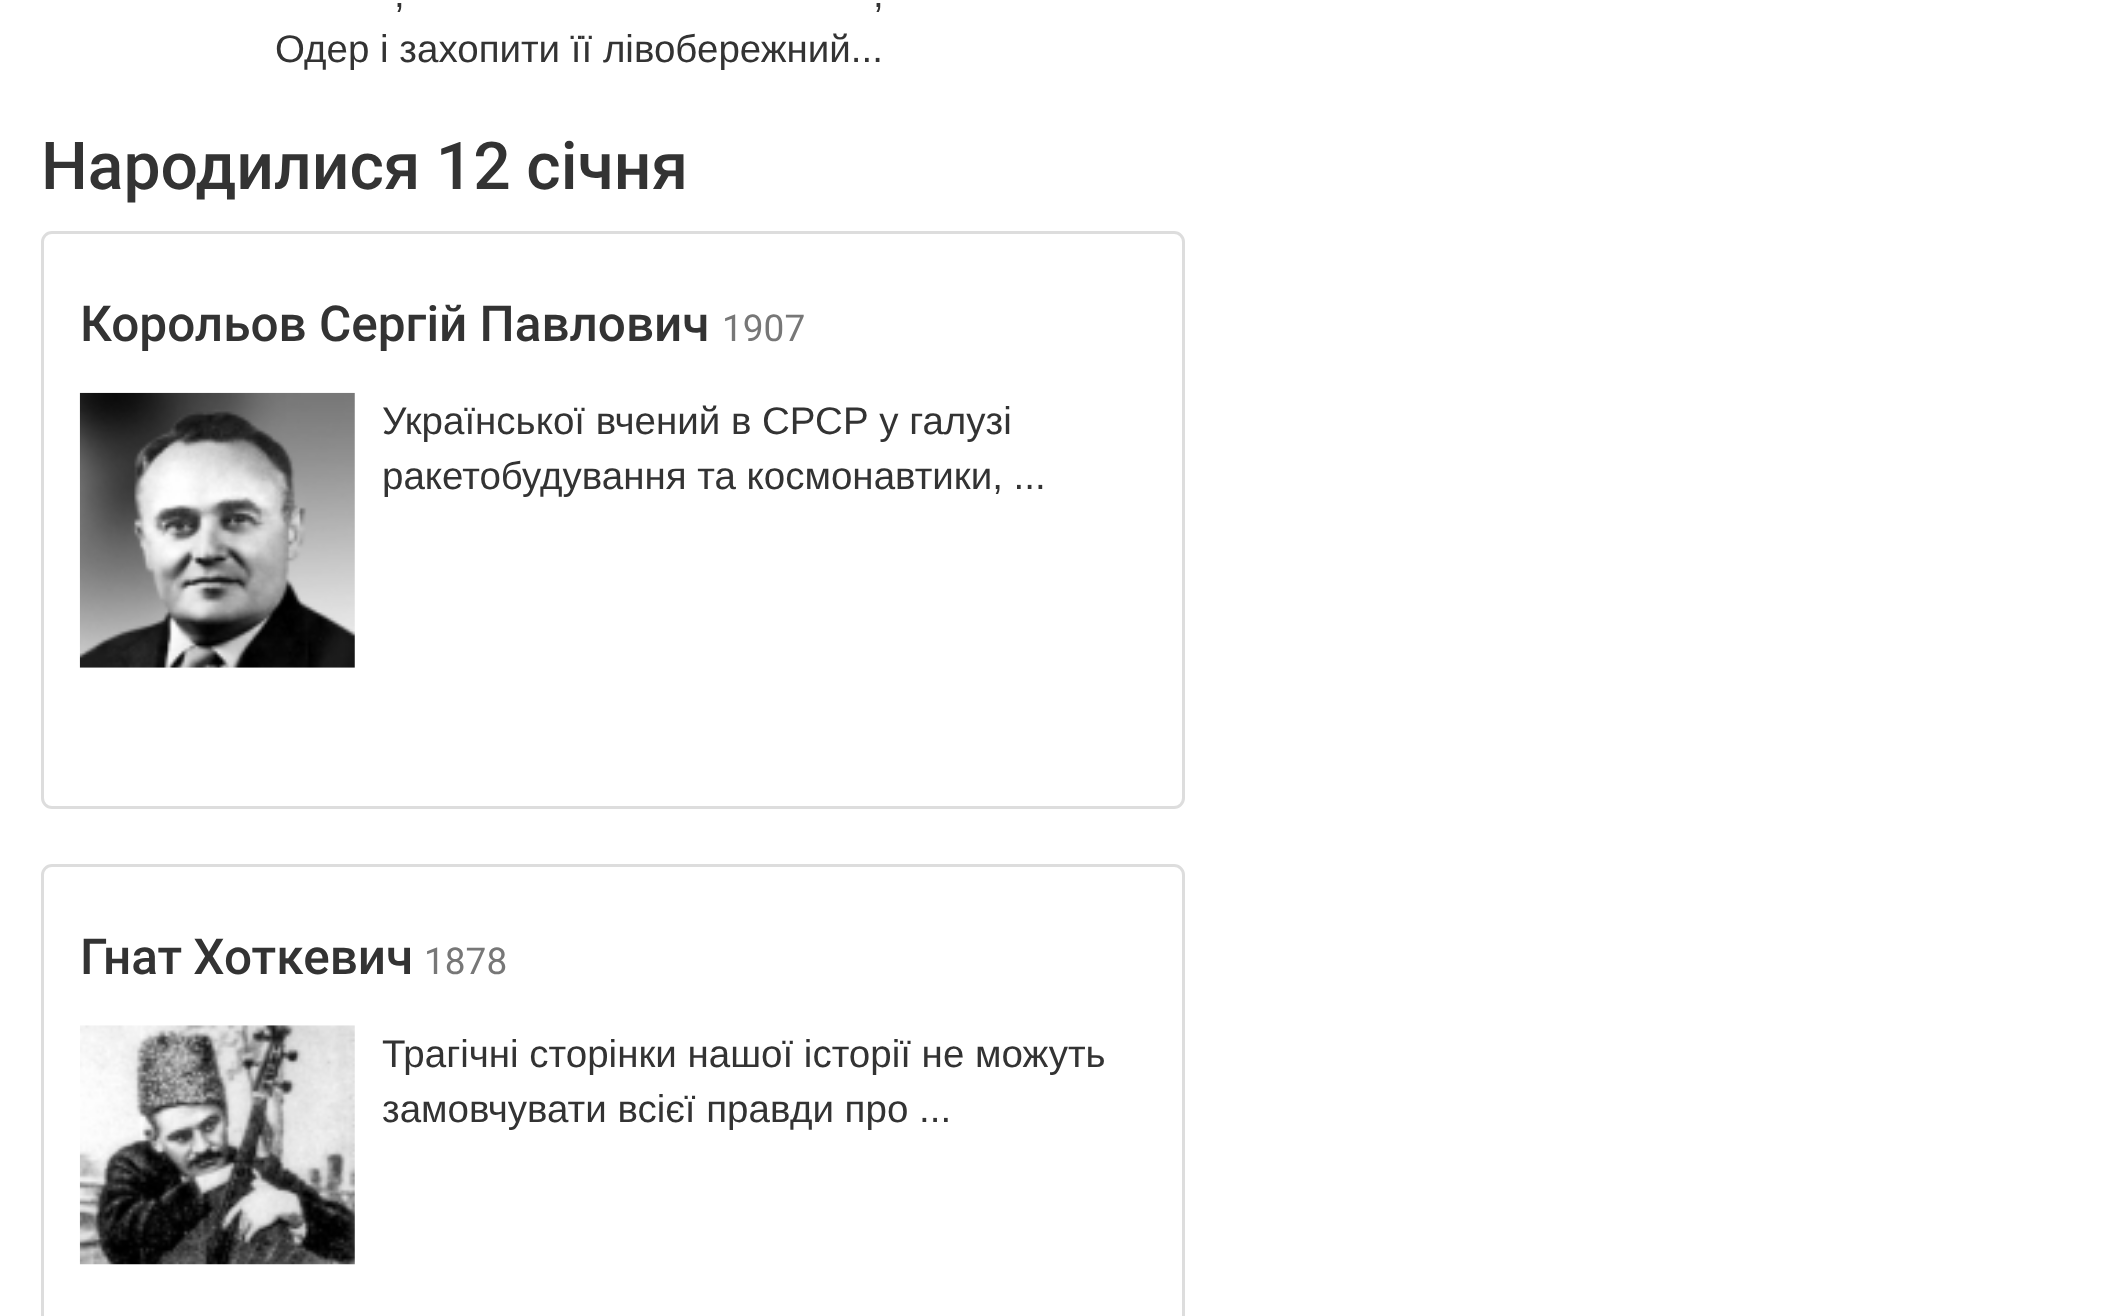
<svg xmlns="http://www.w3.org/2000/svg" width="2103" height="1316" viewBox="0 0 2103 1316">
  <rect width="100%" height="100%" fill="#fff"/>
  <rect x="42.5" y="232.5" width="1141" height="575" rx="9.5" fill="none" stroke="#ddd" stroke-width="3"/>
  <image x="79" y="392" width="276" height="276" href="img/1.png"/>
  <rect x="42.5" y="865.5" width="1141" height="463" rx="9.5" fill="none" stroke="#ddd" stroke-width="3"/>
  <image x="79" y="1025" width="276" height="240" href="img/2.png"/>
  <g font-family="Liberation Sans" font-size="38.5" fill="#333">
    <text x="394" y="7">,</text>
    <text x="873" y="7">,</text>
    <text x="275" y="62">Одер і захопити її лівобережний...</text>
  </g>
  <text x="41" y="189" word-spacing="-1" font-family="Roboto" font-size="66" font-weight="500" fill="#333">Народилися 12 січня</text>
  <text x="80" y="341" font-family="Roboto" font-size="49.5" font-weight="500" fill="#333">Корольов Сергій Павлович</text>
  <text x="722" y="341" font-family="Roboto" font-size="37" fill="#777">1907</text>
  <g font-family="Liberation Sans" font-size="38.5" fill="#333">
    <text x="382" y="434">Української вчений в СРСР у галузі</text>
    <text x="382" y="489">ракетобудування та космонавтики, ...</text>
  </g>
  <text x="80" y="974" word-spacing="-1" font-family="Roboto" font-size="49.5" font-weight="500" fill="#333">Гнат Хоткевич</text>
  <text x="424" y="974" font-family="Roboto" font-size="37" fill="#777">1878</text>
  <g font-family="Liberation Sans" font-size="38.5" fill="#333">
    <text x="382" y="1067">Трагічні сторінки нашої історії не можуть</text>
    <text x="382" y="1122">замовчувати всієї правди про ...</text>
  </g>
</svg>
